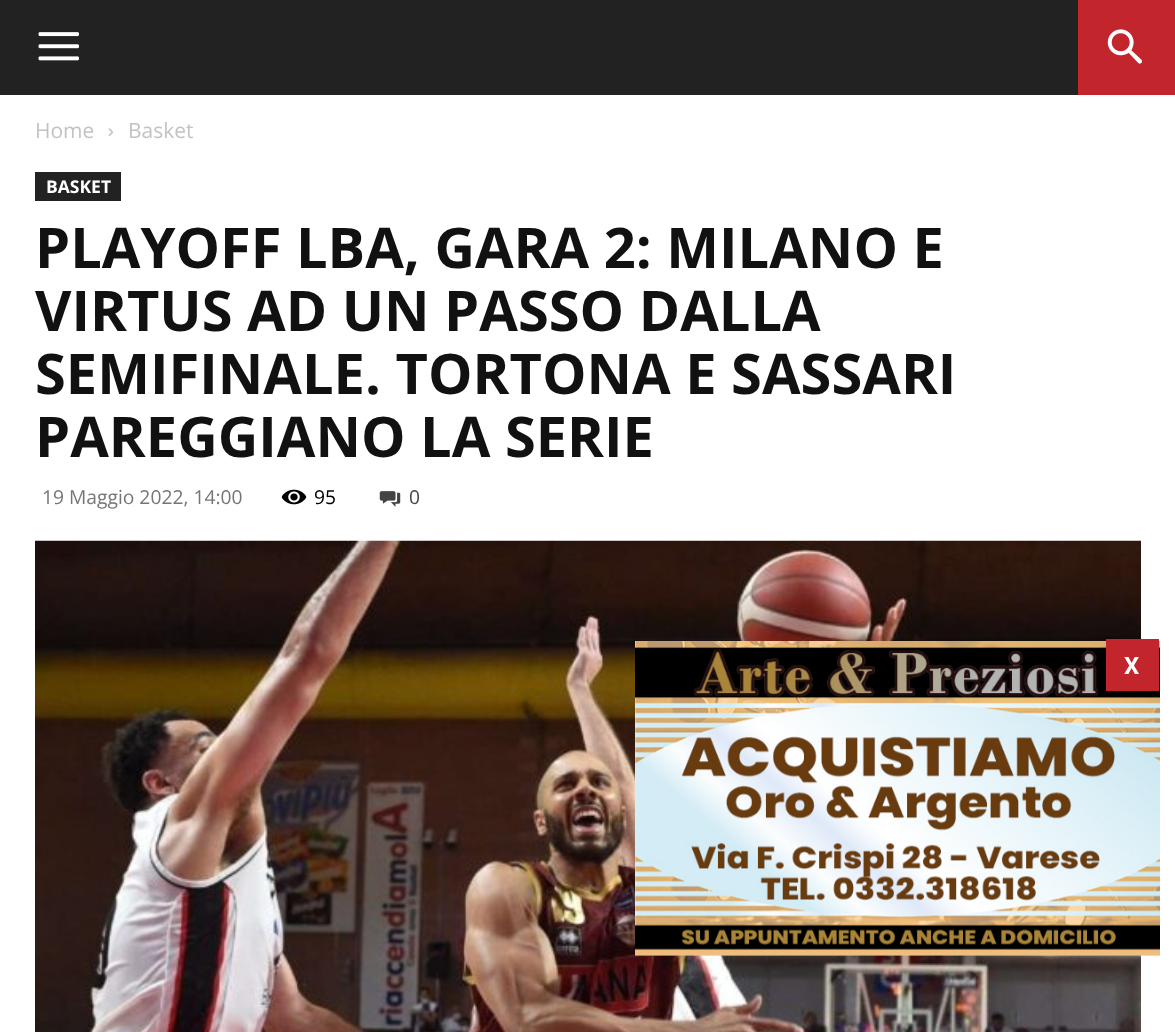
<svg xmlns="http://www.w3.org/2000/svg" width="1175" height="1032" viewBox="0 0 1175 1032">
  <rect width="100%" height="100%" fill="#fff"/>
  <path d="M0 0h1078v95H0z" fill="#222"/>
  <image x="38" y="32" width="41" height="29" href="img/1.png"/>
  <path d="M1078 0h97v95H1078z" fill="#c2252b"/>
  <image x="1107" y="29" width="36" height="35" href="img/2.png"/>
  <image x="108" y="128" width="6" height="9" href="img/3.png"/>
  <path d="M35 172h86v29H35z" fill="#222"/>
  <image x="281" y="489" width="26" height="16" href="img/4.png"/>
  <image x="379" y="491" width="22" height="16" href="img/5.png"/>
  <image x="35" y="540" width="1106" height="492" href="img/6.png"/>
  <image x="635" y="641" width="525" height="315" href="img/7.png"/>
  <path d="M1106 639h53v52H1106z" fill="#c2252b"/>
  <g font-family="Open Sans" font-size="21" fill="#c3c3c3">
    <text x="35" y="138">Home</text>
    <text x="128" y="138">Basket</text>
  </g>
  <text x="46" y="193" font-family="Open Sans" font-size="17.5" font-weight="bold" fill="#fff">BASKET</text>
  <g font-family="Open Sans" font-size="56" font-weight="bold" fill="#111">
    <text x="35" y="268">PLAYOFF LBA, GARA 2: MILANO E</text>
    <text x="35" y="331">VIRTUS AD UN PASSO DALLA</text>
    <text x="35" y="394">SEMIFINALE. TORTONA E SASSARI</text>
    <text x="35" y="457">PAREGGIANO LA SERIE</text>
  </g>
  <text x="42" y="504" font-family="Open Sans" font-size="19.25" fill="#767676">19 Maggio 2022, 14:00</text>
  <text x="314" y="504" font-family="Open Sans" font-size="19.25" fill="#000">95</text>
  <text x="409" y="504" font-family="Open Sans" font-size="19.25" fill="#444">0</text>
  <text x="1124" y="674" font-family="Roboto" font-size="24" font-weight="bold" fill="#fff">X</text>
</svg>
